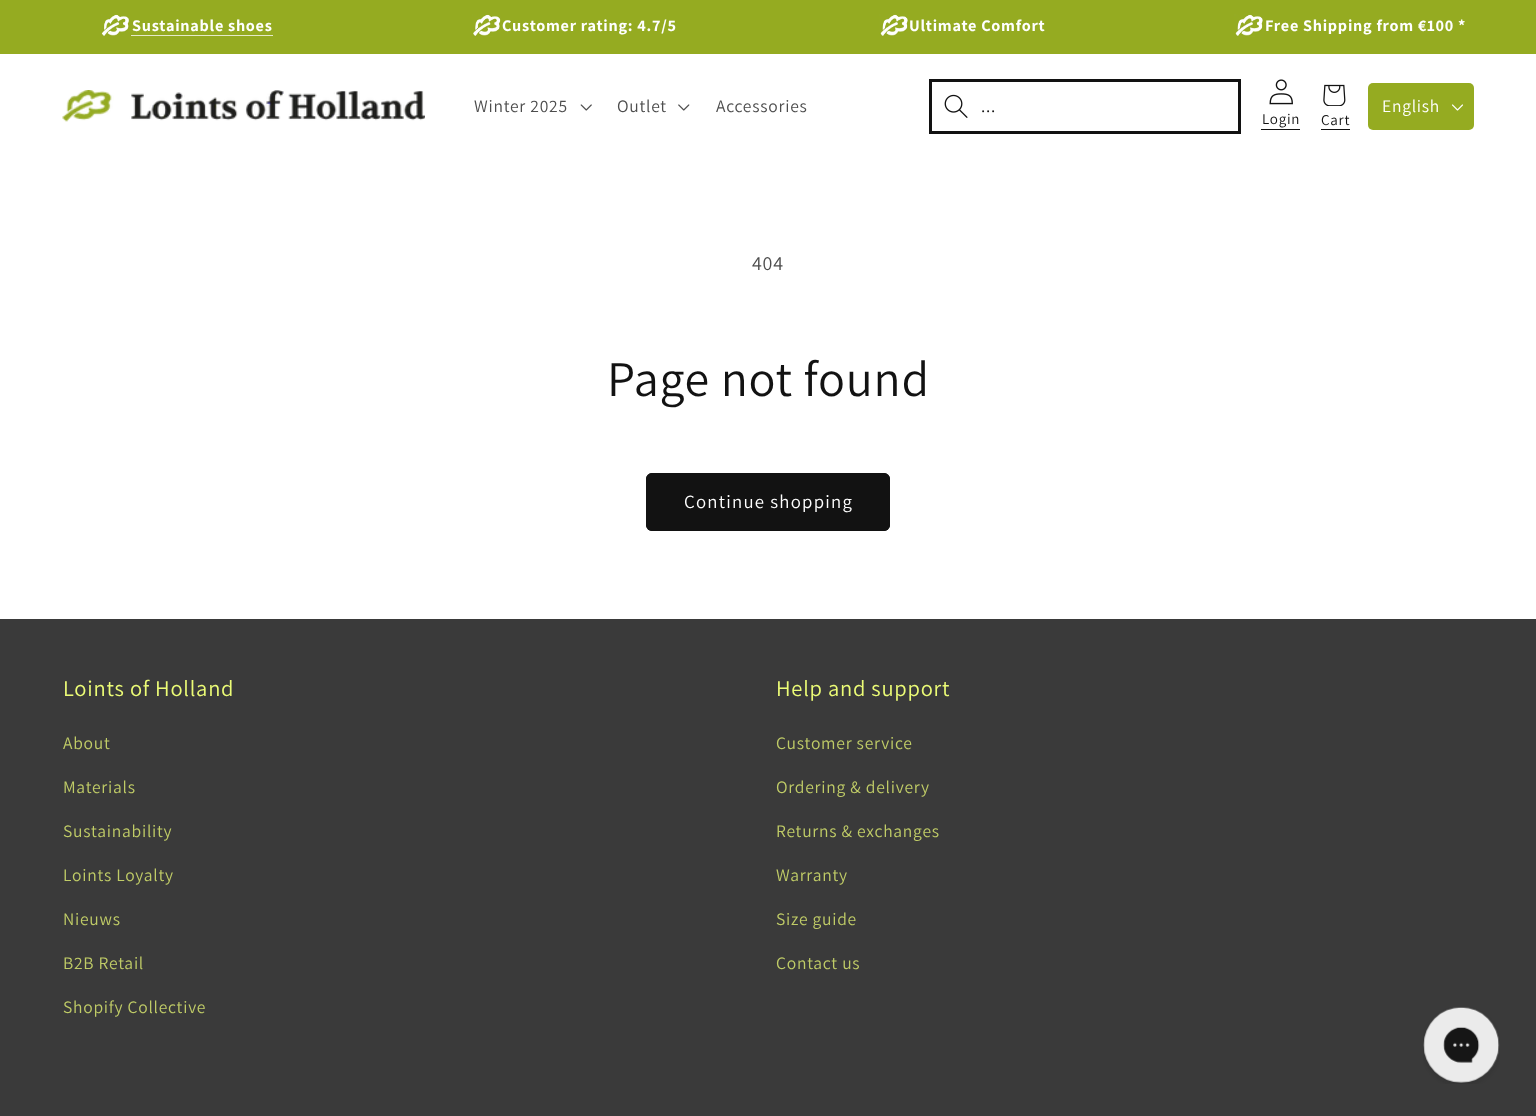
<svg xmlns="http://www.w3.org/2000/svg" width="1536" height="1116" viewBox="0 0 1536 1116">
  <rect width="100%" height="100%" fill="#fff"/>
  <path d="M0 0h1536v54H0z" fill="#95ab21"/>
  <image x="101" y="14" width="29" height="22" href="img/1.png"/>
  <path d="M131 35h142v1H131z" fill="#e5eac8"/>
  <image x="472" y="14" width="29" height="23" href="img/2.png"/>
  <image x="879" y="14" width="30" height="23" href="img/3.png"/>
  <image x="1234" y="14" width="30" height="23" href="img/3.png"/>
  <image x="62" y="90" width="363" height="32" href="img/4.png"/>
  <image x="580" y="104" width="12" height="7" href="img/5.png"/>
  <image x="678" y="104" width="12" height="7" href="img/6.png"/>
  <path d="M930.5 80.5h309v52H930.5z" fill="none" stroke="#121212" stroke-width="3"/>
  <image x="944" y="94" width="24" height="24" href="img/7.png"/>
  <rect x="1368" y="83" width="106" height="47" rx="5" fill="#95ab21"/>
  <image x="1452" y="104" width="11" height="7" href="img/8.png"/>
  <image x="1269" y="79" width="24" height="26" href="img/9.png"/>
  <path d="M1261 129h39v1H1261z" fill="#121212"/>
  <image x="1323" y="84" width="23" height="22" href="img/10.png"/>
  <path d="M1321 129h29v1H1321z" fill="#121212"/>
  <rect x="646" y="473" width="244" height="58" rx="6" fill="#121212"/>
  <rect x="646.5" y="473.5" width="243" height="57" rx="5.5" fill="none" stroke="#121212"/>
  <path d="M0 619h1536v497H0z" fill="#3a3a3a"/>
  <image x="1423" y="1007" width="77" height="77" href="img/11.png"/>
  <g font-family="Assistant" font-size="16.25" font-weight="bold" letter-spacing="0.75" fill="#fff">
    <text x="132" y="31">Sustainable shoes</text>
    <text x="502" y="31">Customer rating: 4.7/5</text>
    <text x="909" y="31">Ultimate Comfort</text>
    <text x="1265" y="31">Free Shipping from €100 *</text>
  </g>
  <g font-family="Assistant" font-size="17.5" letter-spacing="0.75" fill="#4d4d4d">
    <text x="474" y="112">Winter 2025</text>
    <text x="617" y="112">Outlet</text>
    <text x="716" y="112">Accessories</text>
  </g>
  <text x="981" y="112" font-family="Assistant" font-size="17.5" letter-spacing="0.75" fill="#121212">...</text>
  <text x="1382" y="112" font-family="Assistant" font-size="17.5" letter-spacing="0.75" fill="#fff">English</text>
  <g font-family="Assistant" font-size="15" letter-spacing="0.75" fill="#121212">
    <text x="1262" y="124">Login</text>
    <text x="1321" y="125">Cart</text>
  </g>
  <text x="752" y="270" font-family="Assistant" font-size="20" letter-spacing="0.75" fill="#4d4d4d">404</text>
  <text x="607" y="396" font-family="Assistant" font-size="50" letter-spacing="0.75" fill="#121212">Page not found</text>
  <text x="684" y="508" font-family="Assistant" font-size="18.75" letter-spacing="1.25" fill="#fff">Continue shopping</text>
  <text x="63" y="696" font-family="Assistant" font-size="22.5" letter-spacing="0.75" fill="#ecfc76">Loints of Holland</text>
  <g font-family="Assistant" font-size="17.5" letter-spacing="0.75" fill="#c0cc67">
    <text x="63" y="749">About</text>
    <text x="63" y="793">Materials</text>
    <text x="63" y="837">Sustainability</text>
    <text x="63" y="881">Loints Loyalty</text>
    <text x="63" y="925">Nieuws</text>
    <text x="63" y="969">B2B Retail</text>
    <text x="63" y="1013">Shopify Collective</text>
  </g>
  <text x="776" y="696" font-family="Assistant" font-size="22.5" letter-spacing="0.75" fill="#ecfc76">Help and support</text>
  <g font-family="Assistant" font-size="17.5" letter-spacing="0.75" fill="#c0cc67">
    <text x="776" y="749">Customer service</text>
    <text x="776" y="793">Ordering &amp; delivery</text>
    <text x="776" y="837">Returns &amp; exchanges</text>
    <text x="776" y="881">Warranty</text>
    <text x="776" y="925">Size guide</text>
    <text x="776" y="969">Contact us</text>
  </g>
</svg>
